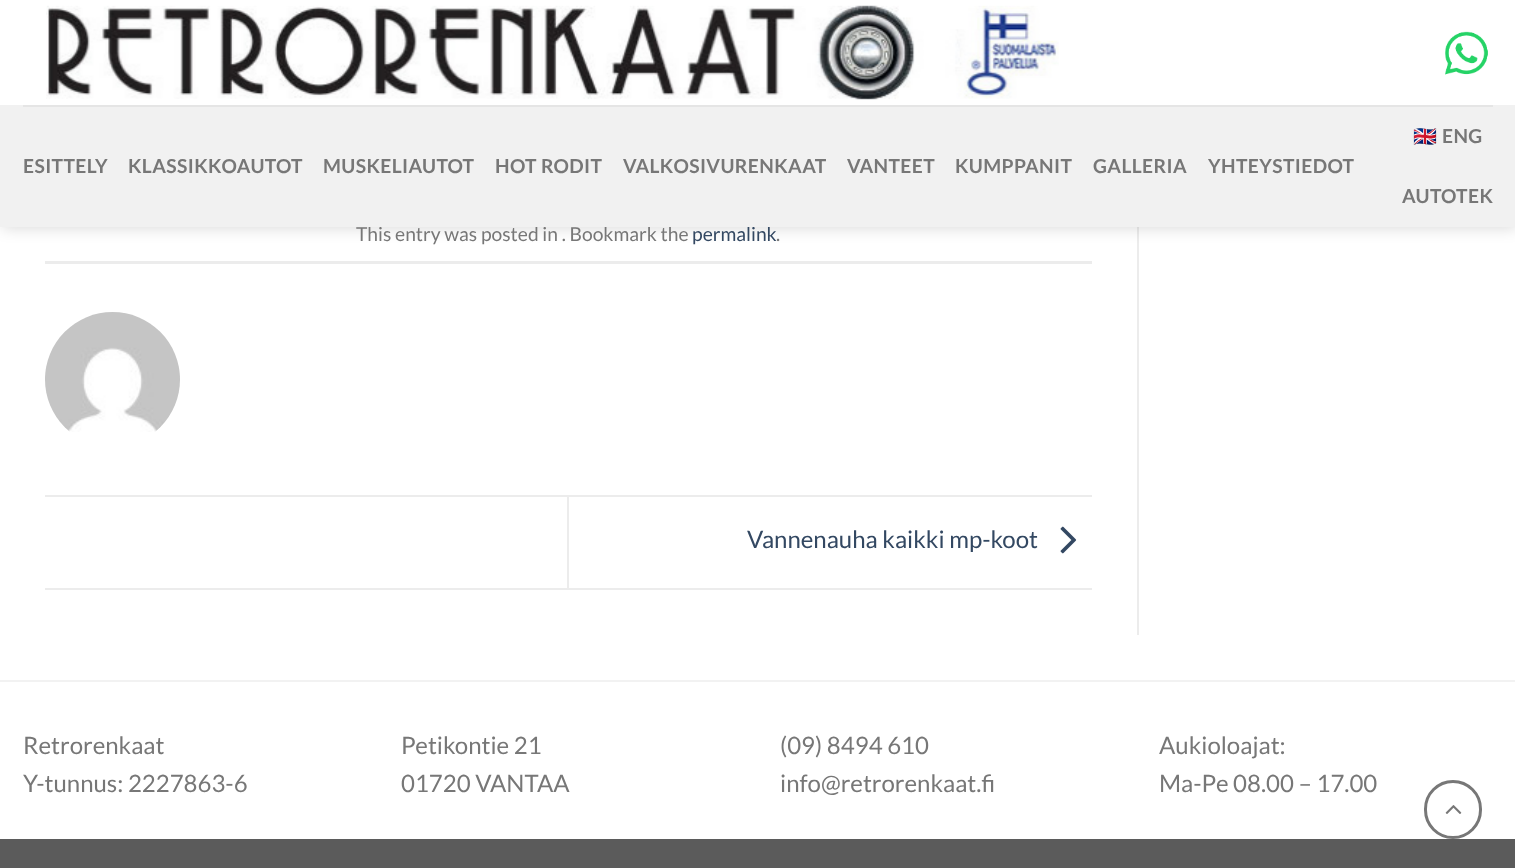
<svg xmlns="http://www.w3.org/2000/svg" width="1515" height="868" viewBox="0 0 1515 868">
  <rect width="100%" height="100%" fill="#fff"/>
  <path d="M1137 227h2v408H1137z" fill="#ececec"/>
  <path d="M2 2h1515v226H2z" fill="#00000026" filter="blur(7.5px)"/>
  <path d="M0 0h1515v105H0z" fill="#fff"/>
  <image x="46" y="5" width="1013" height="95" href="img/1.png"/>
  <image x="1445" y="31" width="43" height="44" href="img/2.png"/>
  <path d="M45 261h1047v3H45z" fill="#ececec"/>
  <image x="45" y="312" width="135" height="120" href="img/3.png"/>
  <path d="M45 495h1047v2H45z" fill="#ececec"/>
  <path d="M45 588h1047v2H45z" fill="#ececec"/>
  <path d="M567 497h2v91H567z" fill="#ececec"/>
  <image x="1060" y="526" width="17" height="28" href="img/4.png"/>
  <path d="M0 680h1515v2H0z" fill="#f2f2f2"/>
  <rect x="1425.5" y="781.5" width="55" height="56" rx="27.5" fill="none" stroke="#777" stroke-width="3"/>
  <image x="1445" y="805" width="17" height="9" href="img/5.png"/>
  <path d="M0 839h1515v29H0z" fill="#5b5b5b"/>
  <text x="356" y="241" font-family="Lato" font-size="19.25" fill="#777">This entry was posted in . Bookmark the</text>
  <text x="692" y="241" font-family="Lato" font-size="19.25" fill="#334862">permalink</text>
  <path d="M0 105h1515v122H0z" fill="#f1f1f1"/>
  <path d="M23 105h1470v2H23z" fill="#e5e5e5"/>
  <g font-family="Lato" font-size="19.25" font-weight="bold" letter-spacing="0.4" fill="#777">
    <text x="1402" y="203">AUTOTEK</text>
    <text x="1442" y="143">ENG</text>
  </g>
  <text x="1413" y="143" font-family="Noto Color Emoji" font-size="19.25" font-weight="bold" letter-spacing="0.4" fill="#777">🇬🇧</text>
  <g font-family="Lato" font-size="19.25" font-weight="bold" letter-spacing="0.4" fill="#777">
    <text x="1208" y="173">YHTEYSTIEDOT</text>
    <text x="1093" y="173">GALLERIA</text>
    <text x="955" y="173">KUMPPANIT</text>
    <text x="847" y="173">VANTEET</text>
    <text x="623" y="173">VALKOSIVURENKAAT</text>
    <text x="495" y="173">HOT RODIT</text>
    <text x="323" y="173">MUSKELIAUTOT</text>
    <text x="128" y="173">KLASSIKKOAUTOT</text>
    <text x="23" y="173">ESITTELY</text>
  </g>
  <text x="776" y="241" font-family="Lato" font-size="19.25" fill="#777">.</text>
  <text x="747" y="548" font-family="Lato" font-size="24" fill="#334862">Vannenauha kaikki mp-koot</text>
  <g font-family="Lato" font-size="24" fill="#777">
    <text x="23" y="754">Retrorenkaat</text>
    <text x="23" y="792">Y-tunnus: 2227863-6</text>
    <text x="401" y="754">Petikontie 21</text>
    <text x="401" y="792">01720 VANTAA</text>
    <text x="780" y="754">(09) 8494 610</text>
    <text x="780" y="792">info@retrorenkaat.fi</text>
    <text x="1159" y="754">Aukioloajat:</text>
    <text x="1159" y="792">Ma-Pe 08.00 – 17.00</text>
  </g>
</svg>
